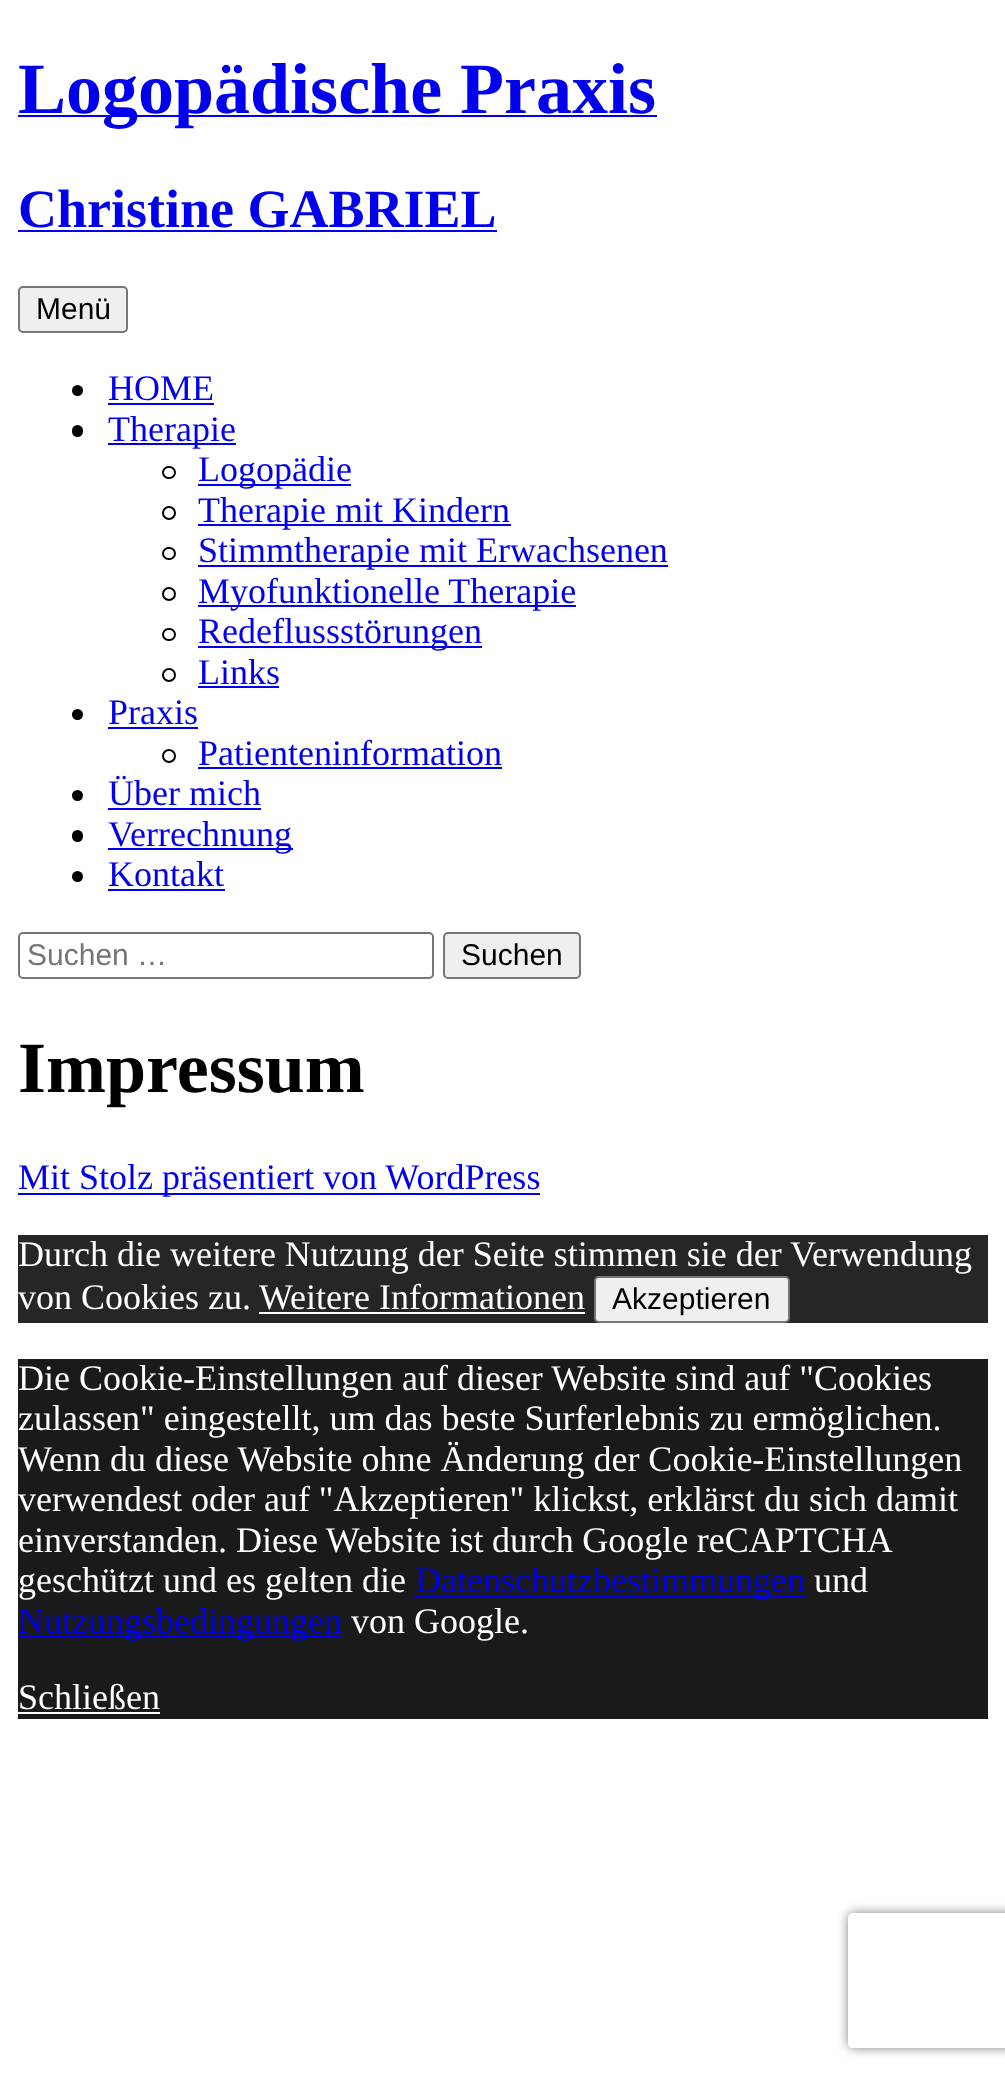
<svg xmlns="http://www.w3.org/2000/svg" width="1005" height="2077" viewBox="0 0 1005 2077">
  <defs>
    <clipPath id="clip1"><path d="M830 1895H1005V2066H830ZM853 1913H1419C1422 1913 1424 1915 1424 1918V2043C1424 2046 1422 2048 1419 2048H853C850 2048 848 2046 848 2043V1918C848 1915 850 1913 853 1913Z" clip-rule="evenodd"/></clipPath>
  </defs>
  <rect width="100%" height="100%" fill="#fff"/>
  <path d="M18 115h639v2H18z" fill="#00e"/>
  <path d="M18 230h479v2H18z" fill="#00e"/>
  <rect x="19" y="287" width="108" height="45" rx="4" fill="#efefef" stroke="#767676" stroke-width="2"/>
  <circle cx="77.5" cy="390.5" r="5.5" fill="#000"/>
  <path d="M108 403h106v2H108z" fill="#00e"/>
  <rect x="72" y="425" width="11" height="12" rx="5.5" fill="#000"/>
  <path d="M108 443h128v2H108z" fill="#00e"/>
  <rect x="163" y="467" width="12" height="11" rx="5.5" fill="none" stroke="#000" stroke-width="2"/>
  <path d="M198 484h153v2H198z" fill="#00e"/>
  <circle cx="169" cy="513" r="6" fill="none" stroke="#000" stroke-width="2"/>
  <path d="M198 524h313v2H198z" fill="#00e"/>
  <rect x="163" y="548" width="12" height="11" rx="5.5" fill="none" stroke="#000" stroke-width="2"/>
  <path d="M198 565h470v2H198z" fill="#00e"/>
  <circle cx="169" cy="594" r="6" fill="none" stroke="#000" stroke-width="2"/>
  <path d="M198 605h378v2H198z" fill="#00e"/>
  <rect x="163" y="629" width="12" height="11" rx="5.5" fill="none" stroke="#000" stroke-width="2"/>
  <path d="M198 646h284v2H198z" fill="#00e"/>
  <circle cx="169" cy="675" r="6" fill="none" stroke="#000" stroke-width="2"/>
  <path d="M198 686h81v2H198z" fill="#00e"/>
  <circle cx="77.5" cy="714.5" r="5.5" fill="#000"/>
  <path d="M108 727h90v2H108z" fill="#00e"/>
  <circle cx="169" cy="756" r="6" fill="none" stroke="#000" stroke-width="2"/>
  <path d="M198 767h304v2H198z" fill="#00e"/>
  <circle cx="77.5" cy="795.5" r="5.5" fill="#000"/>
  <path d="M108 808h153v2H108z" fill="#00e"/>
  <rect x="72" y="830" width="11" height="12" rx="5.5" fill="#000"/>
  <path d="M108 848h185v2H108z" fill="#00e"/>
  <circle cx="77.5" cy="876.5" r="5.5" fill="#000"/>
  <path d="M108 889h117v2H108z" fill="#00e"/>
  <rect x="19" y="933" width="414" height="45" rx="4" fill="none" stroke="#767676" stroke-width="2"/>
  <rect x="444" y="933" width="136" height="45" rx="4" fill="#efefef" stroke="#767676" stroke-width="2"/>
  <path d="M18 1193h522v2H18z" fill="#00e"/>
  <path d="M18 1235h970v88H18z" fill="#262626"/>
  <path d="M259 1312h326v2H259z" fill="#fff"/>
  <rect x="595" y="1277" width="194" height="45" rx="4" fill="#efefef" stroke="#767676" stroke-width="2"/>
  <path d="M18 1359h970v360H18z" fill="#1a1a1a"/>
  <path d="M414 1595h392v2H414z" fill="#00e"/>
  <path d="M18 1636h324v2H18z" fill="#00e"/>
  <path d="M18 1712h142v2H18z" fill="#fff"/>
  <g clip-path="url(#clip1)">
    <rect x="848" y="1913" width="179" height="135" rx="5" fill="#808080" filter="blur(5.5px)"/>
  </g>
  <text x="18" y="113" font-family="Liberation Serif" font-size="72" font-weight="bold" fill="#00e">Logopädische Praxis</text>
  <text x="18" y="227" font-family="Liberation Serif" font-size="54" font-weight="bold" fill="#00e">Christine GABRIEL</text>
  <text x="36" y="319" font-family="Liberation Sans" font-size="30" fill="#000">Menü</text>
  <g font-family="Liberation Serif" font-size="36" fill="#00e">
    <text x="108" y="400">HOME</text>
    <text x="108" y="441">Therapie</text>
    <text x="198" y="481">Logopädie</text>
    <text x="198" y="522">Therapie mit Kindern</text>
    <text x="198" y="562">Stimmtherapie mit Erwachsenen</text>
    <text x="198" y="603">Myofunktionelle Therapie</text>
    <text x="198" y="643">Redeflussstörungen</text>
    <text x="198" y="684">Links</text>
    <text x="108" y="724">Praxis</text>
    <text x="198" y="765">Patienteninformation</text>
    <text x="108" y="805">Über mich</text>
    <text x="108" y="846">Verrechnung</text>
    <text x="108" y="886">Kontakt</text>
  </g>
  <text x="27" y="965" font-family="Liberation Sans" font-size="30" fill="#757575">Suchen …</text>
  <text x="461" y="965" font-family="Liberation Sans" font-size="30" fill="#000">Suchen</text>
  <text x="18" y="1092" font-family="Liberation Serif" font-size="72" font-weight="bold" fill="#000">Impressum</text>
  <text x="18" y="1189" font-family="Liberation Serif" font-size="36" fill="#00e">Mit Stolz präsentiert von WordPress</text>
  <g font-family="Liberation Serif" font-size="36" fill="#fff">
    <text x="18" y="1266">Durch die weitere Nutzung der Seite stimmen sie der Verwendung</text>
    <text x="18" y="1309">von Cookies zu.</text>
    <text x="259" y="1309">Weitere Informationen</text>
  </g>
  <text x="612" y="1309" font-family="Liberation Sans" font-size="30" fill="#000">Akzeptieren</text>
  <g font-family="Liberation Serif" font-size="36" fill="#fff">
    <text x="18" y="1390">Die Cookie-Einstellungen auf dieser Website sind auf "Cookies</text>
    <text x="18" y="1430">zulassen" eingestellt, um das beste Surferlebnis zu ermöglichen.</text>
    <text x="18" y="1471">Wenn du diese Website ohne Änderung der Cookie-Einstellungen</text>
    <text x="18" y="1511">verwendest oder auf "Akzeptieren" klickst, erklärst du sich damit</text>
    <text x="18" y="1552">einverstanden.</text>
    <text x="236" y="1552" word-spacing="-0.5">Diese Website ist durch Google reCAPTCHA</text>
    <text x="18" y="1592">geschützt und es gelten die</text>
  </g>
  <text x="415" y="1592" font-family="Liberation Serif" font-size="36" fill="#00e">Datenschutzbestimmungen</text>
  <text x="814" y="1592" font-family="Liberation Serif" font-size="36" fill="#fff">und</text>
  <text x="18" y="1633" font-family="Liberation Serif" font-size="36" fill="#00e">Nutzungsbedingungen</text>
  <g font-family="Liberation Serif" font-size="36" fill="#fff">
    <text x="351" y="1633">von Google.</text>
    <text x="18" y="1709">Schließen</text>
  </g>
</svg>
